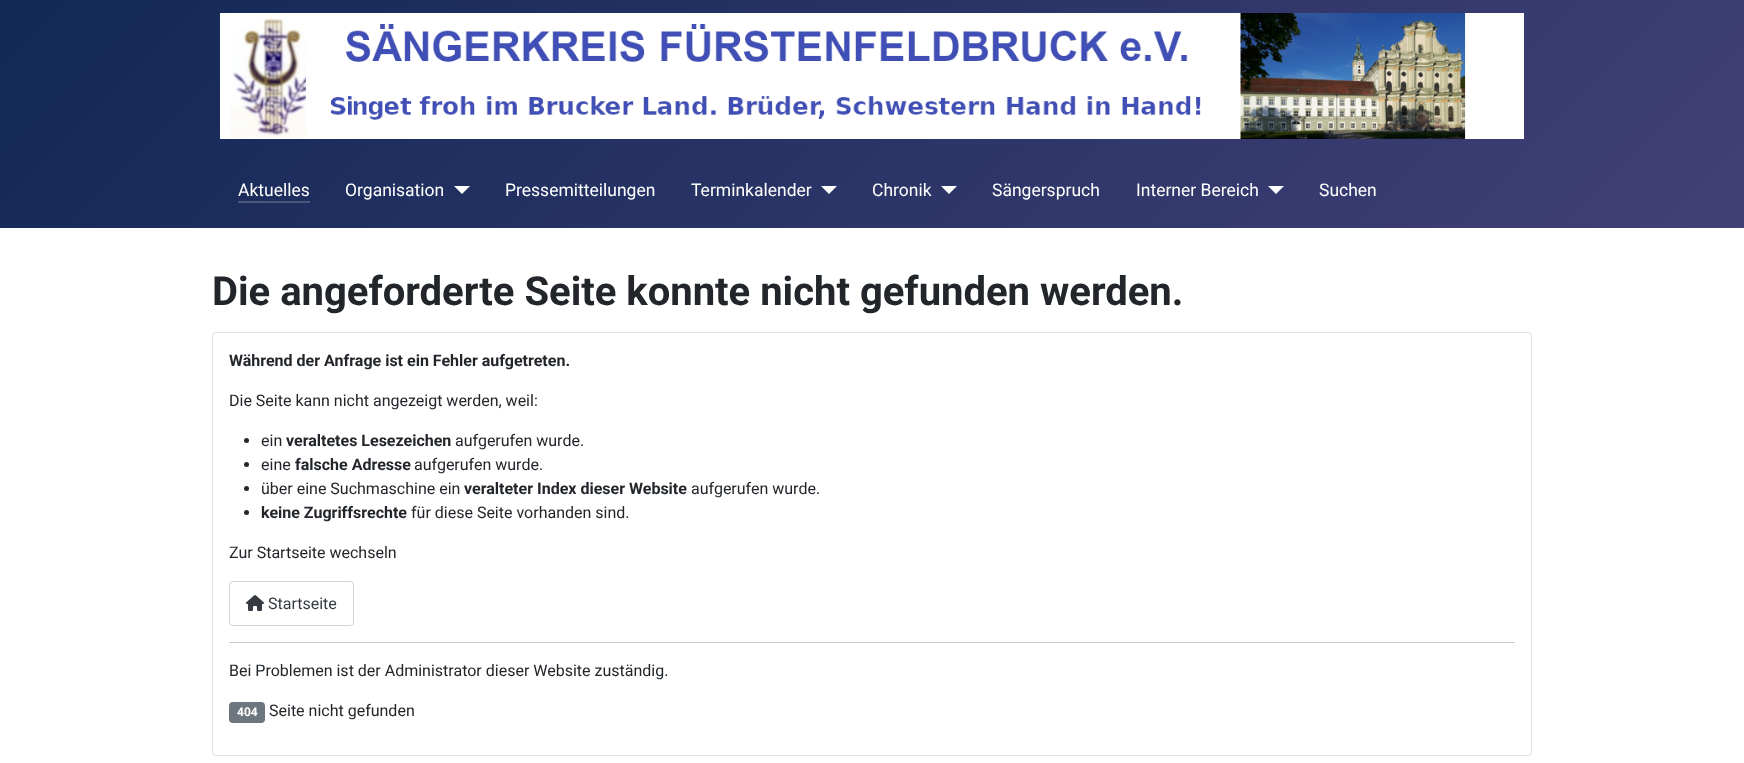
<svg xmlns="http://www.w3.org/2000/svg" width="1744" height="763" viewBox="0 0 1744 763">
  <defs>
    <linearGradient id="g1" gradientUnits="userSpaceOnUse" x1="379" y1="-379" x2="1365" y2="607"><stop offset="0" stop-color="#112855"/><stop offset="1" stop-color="#424077"/></linearGradient>
  </defs>
  <rect width="100%" height="100%" fill="#fff"/>
  <path d="M0 0h1744v228H0z" fill="url(#g1)"/>
  <image x="220" y="13" width="1304" height="126" href="img/1.png"/>
  <path d="M238 201h72v2H238z" fill="#4a587e"/>
  <path d="M454 186H470L462 194Z" fill="#fff"/>
  <path d="M821 186H837L829 194Z" fill="#fff"/>
  <path d="M941 186H957L949 194Z" fill="#fff"/>
  <path d="M1268 186H1284L1276 194Z" fill="#fff"/>
  <rect x="212.5" y="332.5" width="1319" height="423" rx="3.5" fill="none" stroke="#dfe3e7"/>
  <circle cx="246.5" cy="440.5" r="2.5" fill="#22262a"/>
  <circle cx="246.5" cy="464.5" r="2.5" fill="#22262a"/>
  <circle cx="246.5" cy="488.5" r="2.5" fill="#22262a"/>
  <circle cx="246.5" cy="512.5" r="2.5" fill="#22262a"/>
  <rect x="229.5" y="581.5" width="124" height="44" rx="3.5" fill="none" stroke="#ced4da"/>
  <image x="246" y="595" width="18" height="16" href="img/2.png"/>
  <path d="M229 642h1286v1H229z" fill="#c8c9ca"/>
  <rect x="229" y="702" width="36" height="21" rx="4" fill="#6d757e"/>
  <g font-family="Roboto" font-size="17.5" fill="#fff">
    <text x="238" y="196">Aktuelles</text>
    <text x="345" y="196">Organisation</text>
    <text x="505" y="196">Pressemitteilungen</text>
    <text x="691" y="196">Terminkalender</text>
    <text x="872" y="196">Chronik</text>
    <text x="992" y="196">Sängerspruch</text>
    <text x="1136" y="196">Interner Bereich</text>
    <text x="1319" y="196">Suchen</text>
  </g>
  <text x="212" y="305" font-family="Roboto" font-size="40" font-weight="bold" fill="#22262a">Die angeforderte Seite konnte nicht gefunden werden.</text>
  <text x="229" y="366" font-family="Roboto" font-size="16" font-weight="bold" fill="#22262a">Während der Anfrage ist ein Fehler aufgetreten.</text>
  <g font-family="Roboto" font-size="16" fill="#22262a">
    <text x="229" y="406">Die Seite kann nicht angezeigt werden, weil:</text>
    <text x="261" y="446">ein</text>
  </g>
  <text x="286" y="446" font-family="Roboto" font-size="16" font-weight="bold" fill="#22262a">veraltetes Lesezeichen</text>
  <g font-family="Roboto" font-size="16" fill="#22262a">
    <text x="455" y="446">aufgerufen wurde.</text>
    <text x="261" y="470">eine</text>
  </g>
  <text x="295" y="470" font-family="Roboto" font-size="16" font-weight="bold" fill="#22262a">falsche Adresse</text>
  <g font-family="Roboto" font-size="16" fill="#22262a">
    <text x="414" y="470">aufgerufen wurde.</text>
    <text x="261" y="494">über eine Suchmaschine ein</text>
  </g>
  <text x="464" y="494" font-family="Roboto" font-size="16" font-weight="bold" fill="#22262a">veralteter Index dieser Website</text>
  <text x="691" y="494" font-family="Roboto" font-size="16" fill="#22262a">aufgerufen wurde.</text>
  <text x="261" y="518" font-family="Roboto" font-size="16" font-weight="bold" fill="#22262a">keine Zugriffsrechte</text>
  <g font-family="Roboto" font-size="16" fill="#22262a">
    <text x="411" y="518">für diese Seite vorhanden sind.</text>
    <text x="229" y="558">Zur Startseite wechseln</text>
  </g>
  <text x="268" y="609" font-family="Roboto" font-size="16" fill="#353b41">Startseite</text>
  <text x="229" y="676" font-family="Roboto" font-size="16" fill="#22262a">Bei Problemen ist der Administrator dieser Website zuständig.</text>
  <text x="237" y="716" font-family="Roboto" font-size="12" font-weight="bold" fill="#fff">404</text>
  <text x="269" y="716" font-family="Roboto" font-size="16" fill="#22262a">Seite nicht gefunden</text>
</svg>
